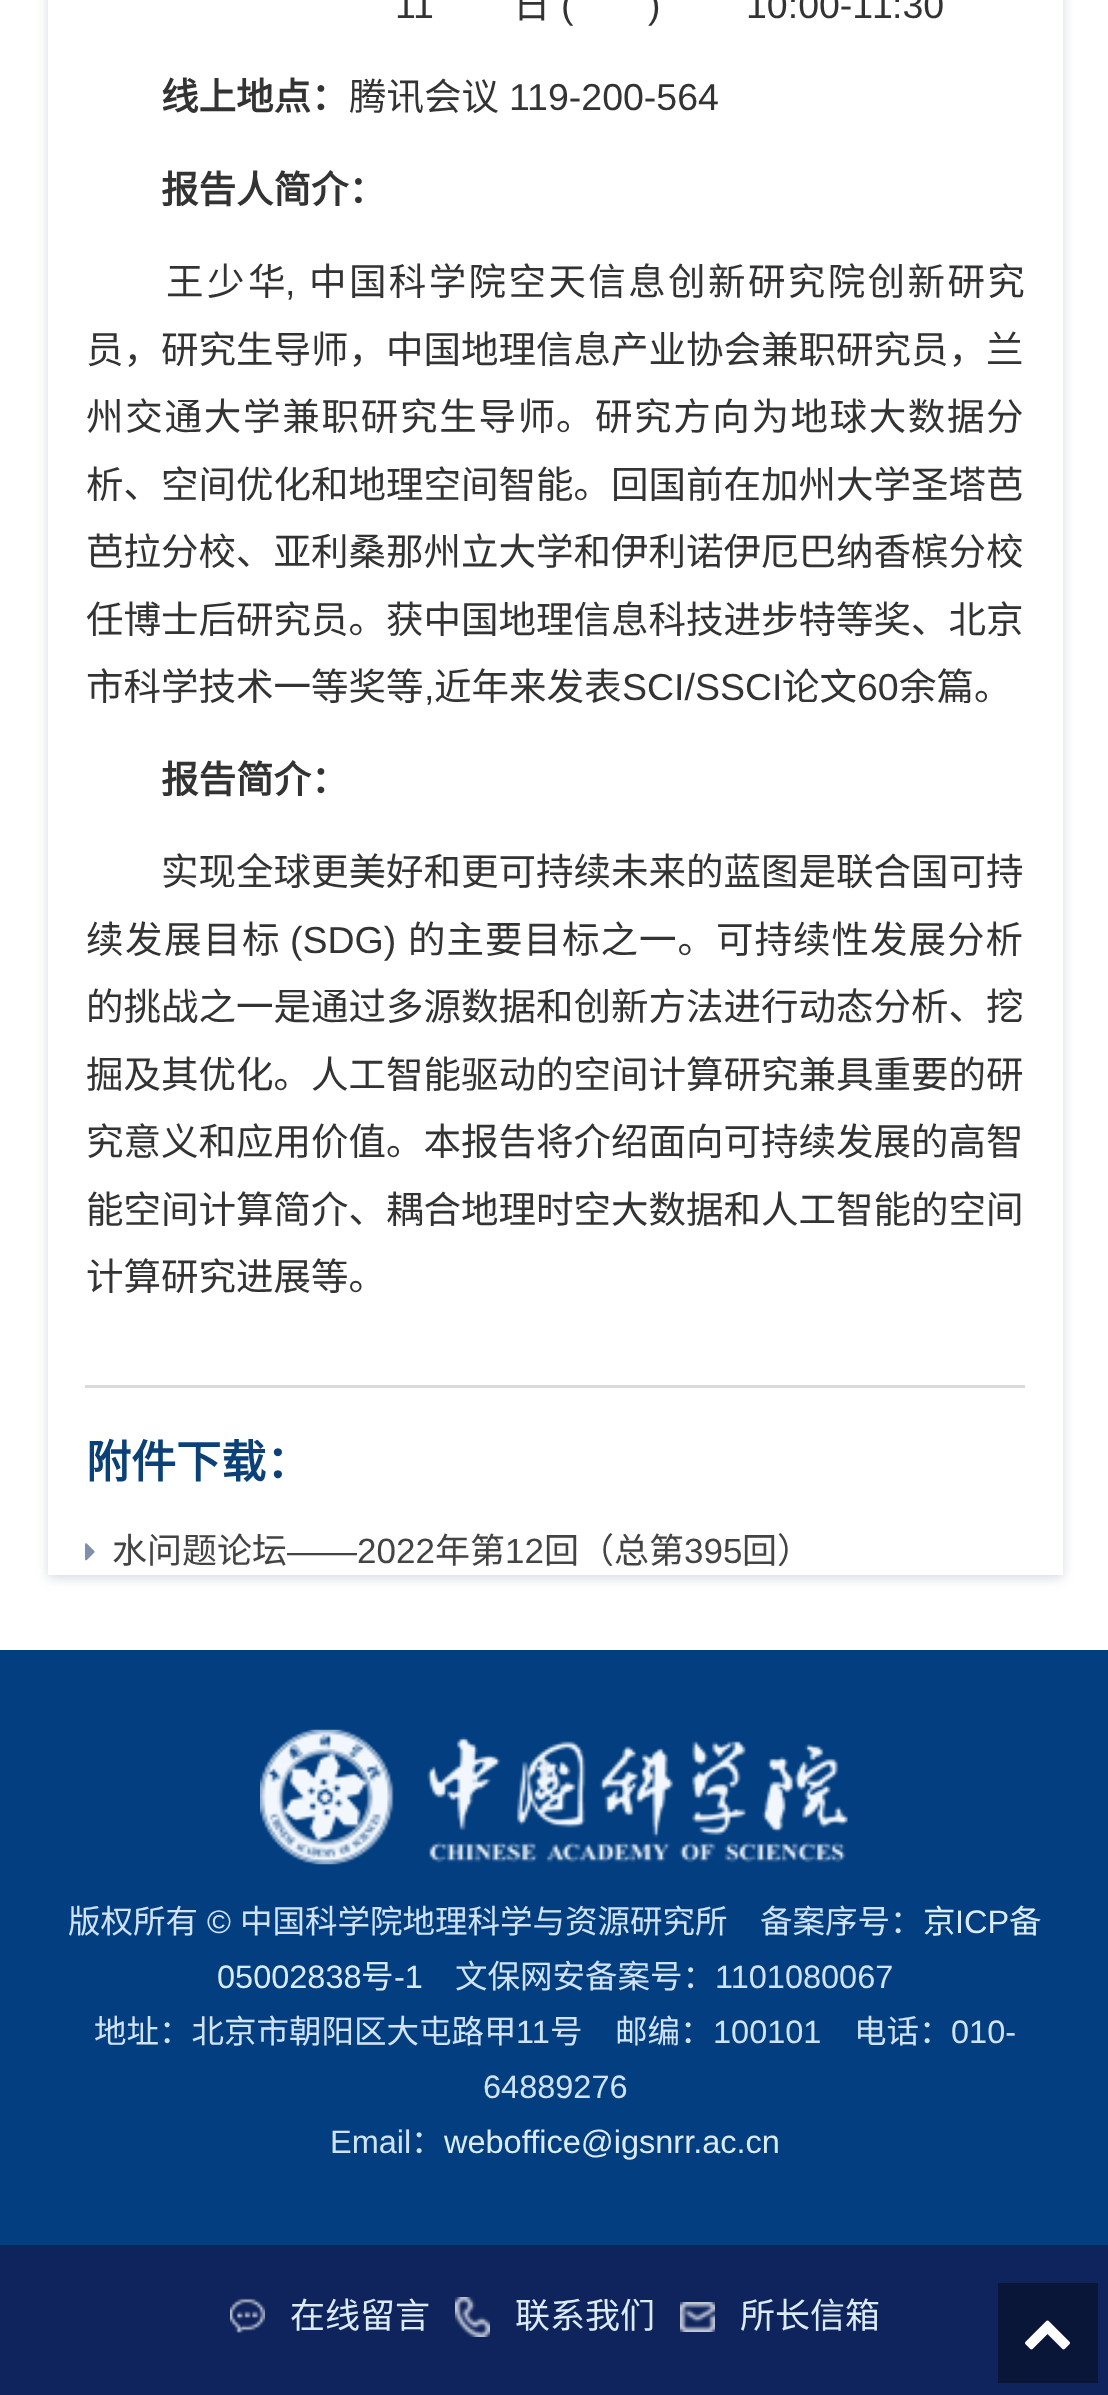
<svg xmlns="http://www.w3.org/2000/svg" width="1108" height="2395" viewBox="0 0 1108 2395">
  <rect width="100%" height="100%" fill="#fff"/>
  <path d="M48 -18h1015v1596H48z" fill="#264d7033" filter="blur(6px)"/>
  <path d="M48 0h1015v1575H48z" fill="#fff"/>
  <path d="M85 1385h940v3H85z" fill="#dadada"/>
  <image x="85" y="1543" width="10" height="18" href="img/1.png"/>
  <path d="M0 1650h1108v595H0z" fill="#023e80"/>
  <image x="260" y="1729" width="588" height="136" href="img/2.png"/>
  <path d="M0 2245h1108v150H0z" fill="#0f245d"/>
  <image x="230" y="2298" width="35" height="35" href="img/3.png"/>
  <image x="455" y="2297" width="35" height="40" href="img/4.png"/>
  <image x="680" y="2302" width="35" height="30" href="img/5.png"/>
  <path d="M998 2283h100v100H998z" fill="#091638"/>
  <image x="1025" y="2320" width="45" height="30" href="img/6.png"/>
  <text x="395" y="18" font-family="Liberation Sans" font-size="37.5" fill="#333">11</text>
  <text x="513" y="18" font-family="Noto Sans CJK SC" font-size="37.5" fill="#333">日</text>
  <g font-family="Liberation Sans" font-size="37.5" fill="#333">
    <text x="561" y="18">(</text>
    <text x="648" y="18">)</text>
    <text x="746" y="18">10:00-1</text>
    <text x="872" y="18">1</text>
    <text x="892" y="18">:30</text>
  </g>
  <text x="161" y="110" font-family="Noto Sans CJK SC" font-size="37.5" font-weight="bold" fill="#333">线上地点：</text>
  <text x="349" y="110" font-family="Noto Sans CJK SC" font-size="37.5" fill="#333">腾讯会议</text>
  <text x="509" y="110" font-family="Liberation Sans" font-size="37.5" fill="#333">119-200-564</text>
  <text x="161" y="203" font-family="Noto Sans CJK SC" font-size="37.5" font-weight="bold" fill="#333">报告人简介：</text>
  <text x="166" y="295" font-family="Noto Sans CJK SC" font-size="37.5" letter-spacing="3.5" fill="#333">王少华</text>
  <text x="285" y="295" font-family="Liberation Sans" font-size="37.5" fill="#333">,</text>
  <text x="309" y="295" font-family="Noto Sans CJK SC" font-size="37.5" letter-spacing="2.4" fill="#333">中国科学院空天信息创新研究院创新研究</text>
  <text x="86" y="363" font-family="Noto Sans CJK SC" font-size="37.5" fill="#333">员，研究生导师，中国地理信息产业协会兼职研究员，兰</text>
  <text x="86" y="430" font-family="Noto Sans CJK SC" font-size="37.5" letter-spacing="1.75" fill="#333">州交通大学兼职研究生导师</text>
  <text x="556" y="430" font-family="Noto Sans CJK SC" font-size="37.5" fill="#333">。</text>
  <text x="595" y="430" font-family="Noto Sans CJK SC" font-size="37.5" letter-spacing="1.6" fill="#333">研究方向为地球大数据分</text>
  <g font-family="Noto Sans CJK SC" font-size="37.5" fill="#333">
    <text x="86" y="498">析、空间优化和地理空间智能。回国前在加州大学圣塔芭</text>
    <text x="86" y="565">芭拉分校、亚利桑那州立大学和伊利诺伊厄巴纳香槟分校</text>
    <text x="86" y="633">任博士后研究员。获中国地理信息科技进步特等奖、北京</text>
    <text x="86" y="700">市科学技术一等奖等</text>
  </g>
  <text x="424" y="700" font-family="Liberation Sans" font-size="37.5" fill="#333">,</text>
  <text x="434" y="700" font-family="Noto Sans CJK SC" font-size="37.5" fill="#333">近年来发表</text>
  <text x="622" y="700" font-family="Liberation Sans" font-size="37.5" fill="#333">SCI/SSCI</text>
  <text x="782" y="700" font-family="Noto Sans CJK SC" font-size="37.5" fill="#333">论文</text>
  <text x="857" y="700" font-family="Liberation Sans" font-size="37.5" fill="#333">60</text>
  <text x="899" y="700" font-family="Noto Sans CJK SC" font-size="37.5" fill="#333">余篇。</text>
  <text x="161" y="793" font-family="Noto Sans CJK SC" font-size="37.5" font-weight="bold" fill="#333">报告简介：</text>
  <text x="161" y="885" font-family="Noto Sans CJK SC" font-size="37.5" fill="#333">实现全球更美好和更可持续未来的蓝图是联合国可持</text>
  <text x="86" y="953" font-family="Noto Sans CJK SC" font-size="37.5" letter-spacing="1.5" fill="#333">续发展目标</text>
  <text x="290" y="953" font-family="Liberation Sans" font-size="37.5" fill="#333">(SDG)</text>
  <text x="408" y="953" font-family="Noto Sans CJK SC" font-size="37.5" letter-spacing="1" fill="#333">的主要目标之一。可持续性发展分析</text>
  <g font-family="Noto Sans CJK SC" font-size="37.5" fill="#333">
    <text x="86" y="1020">的挑战之一是通过多源数据和创新方法进行动态分析、挖</text>
    <text x="86" y="1088">掘及其优化。人工智能驱动的空间计算研究兼具重要的研</text>
    <text x="86" y="1155">究意义和应用价值。本报告将介绍面向可持续发展的高智</text>
    <text x="86" y="1223">能空间计算简介、耦合地理时空大数据和人工智能的空间</text>
    <text x="86" y="1290">计算研究进展等。</text>
  </g>
  <text x="86" y="1478" font-family="Noto Sans CJK SC" font-size="45" font-weight="bold" fill="#0c4178">附件下载：</text>
  <text x="112" y="1563" font-family="Noto Sans CJK SC" font-size="35" fill="#444">水问题论坛</text>
  <text x="287" y="1563" font-family="Liberation Sans" font-size="35" fill="#444">——2022</text>
  <text x="435" y="1563" font-family="Noto Sans CJK SC" font-size="35" fill="#444">年第</text>
  <text x="505" y="1563" font-family="Liberation Sans" font-size="35" fill="#444">12</text>
  <text x="544" y="1563" font-family="Noto Sans CJK SC" font-size="35" fill="#444">回（总第</text>
  <text x="684" y="1563" font-family="Liberation Sans" font-size="35" fill="#444">395</text>
  <text x="742" y="1563" font-family="Noto Sans CJK SC" font-size="35" fill="#444">回）</text>
  <text x="68" y="1933" font-family="Noto Sans CJK SC" font-size="32.5" fill="#cfe3f5">版权所有</text>
  <text x="207" y="1933" font-family="Liberation Sans" font-size="32.5" fill="#cfe3f5">©</text>
  <text x="240" y="1933" font-family="Noto Sans CJK SC" font-size="32.5" fill="#cfe3f5">中国科学院地理科学与资源研究所　备案序号：</text>
  <text x="923" y="1933" font-family="Noto Sans CJK SC" font-size="32.5" fill="#daebf3">京</text>
  <text x="955" y="1933" font-family="Liberation Sans" font-size="32.5" fill="#daebf3">ICP</text>
  <text x="1009" y="1933" font-family="Noto Sans CJK SC" font-size="32.5" fill="#daebf3">备</text>
  <text x="217" y="1988" font-family="Liberation Sans" font-size="32.5" fill="#daebf3">05002838</text>
  <text x="361" y="1988" font-family="Noto Sans CJK SC" font-size="32.5" fill="#daebf3">号</text>
  <text x="394" y="1988" font-family="Liberation Sans" font-size="32.5" fill="#daebf3">-1</text>
  <text x="455" y="1988" font-family="Noto Sans CJK SC" font-size="32.5" fill="#cfe3f5">文保网安备案号：</text>
  <text x="715" y="1988" font-family="Liberation Sans" font-size="32.5" fill="#cfe3f5">1101080067</text>
  <text x="94" y="2043" font-family="Noto Sans CJK SC" font-size="32.5" fill="#cfe3f5">地址：北京市朝阳区大屯路甲</text>
  <text x="516" y="2043" font-family="Liberation Sans" font-size="32.5" fill="#cfe3f5">11</text>
  <text x="550" y="2043" font-family="Noto Sans CJK SC" font-size="32.5" fill="#cfe3f5">号　邮编：</text>
  <text x="713" y="2043" font-family="Liberation Sans" font-size="32.5" fill="#cfe3f5">100101</text>
  <text x="854" y="2043" font-family="Noto Sans CJK SC" font-size="32.5" fill="#cfe3f5">电话：</text>
  <g font-family="Liberation Sans" font-size="32.5" fill="#cfe3f5">
    <text x="951" y="2043">010-</text>
    <text x="483" y="2098">64889276</text>
    <text x="330" y="2153">Email</text>
  </g>
  <text x="411" y="2153" font-family="Noto Sans CJK SC" font-size="32.5" fill="#cfe3f5">：</text>
  <text x="444" y="2153" font-family="Liberation Sans" font-size="32.5" fill="#daebf3">weboffice@igsnrr.ac.cn</text>
  <g font-family="Noto Sans CJK SC" font-size="35" fill="#daebf3">
    <text x="290" y="2328">在线留言</text>
    <text x="515" y="2328">联系我们</text>
    <text x="740" y="2328">所长信箱</text>
  </g>
</svg>
